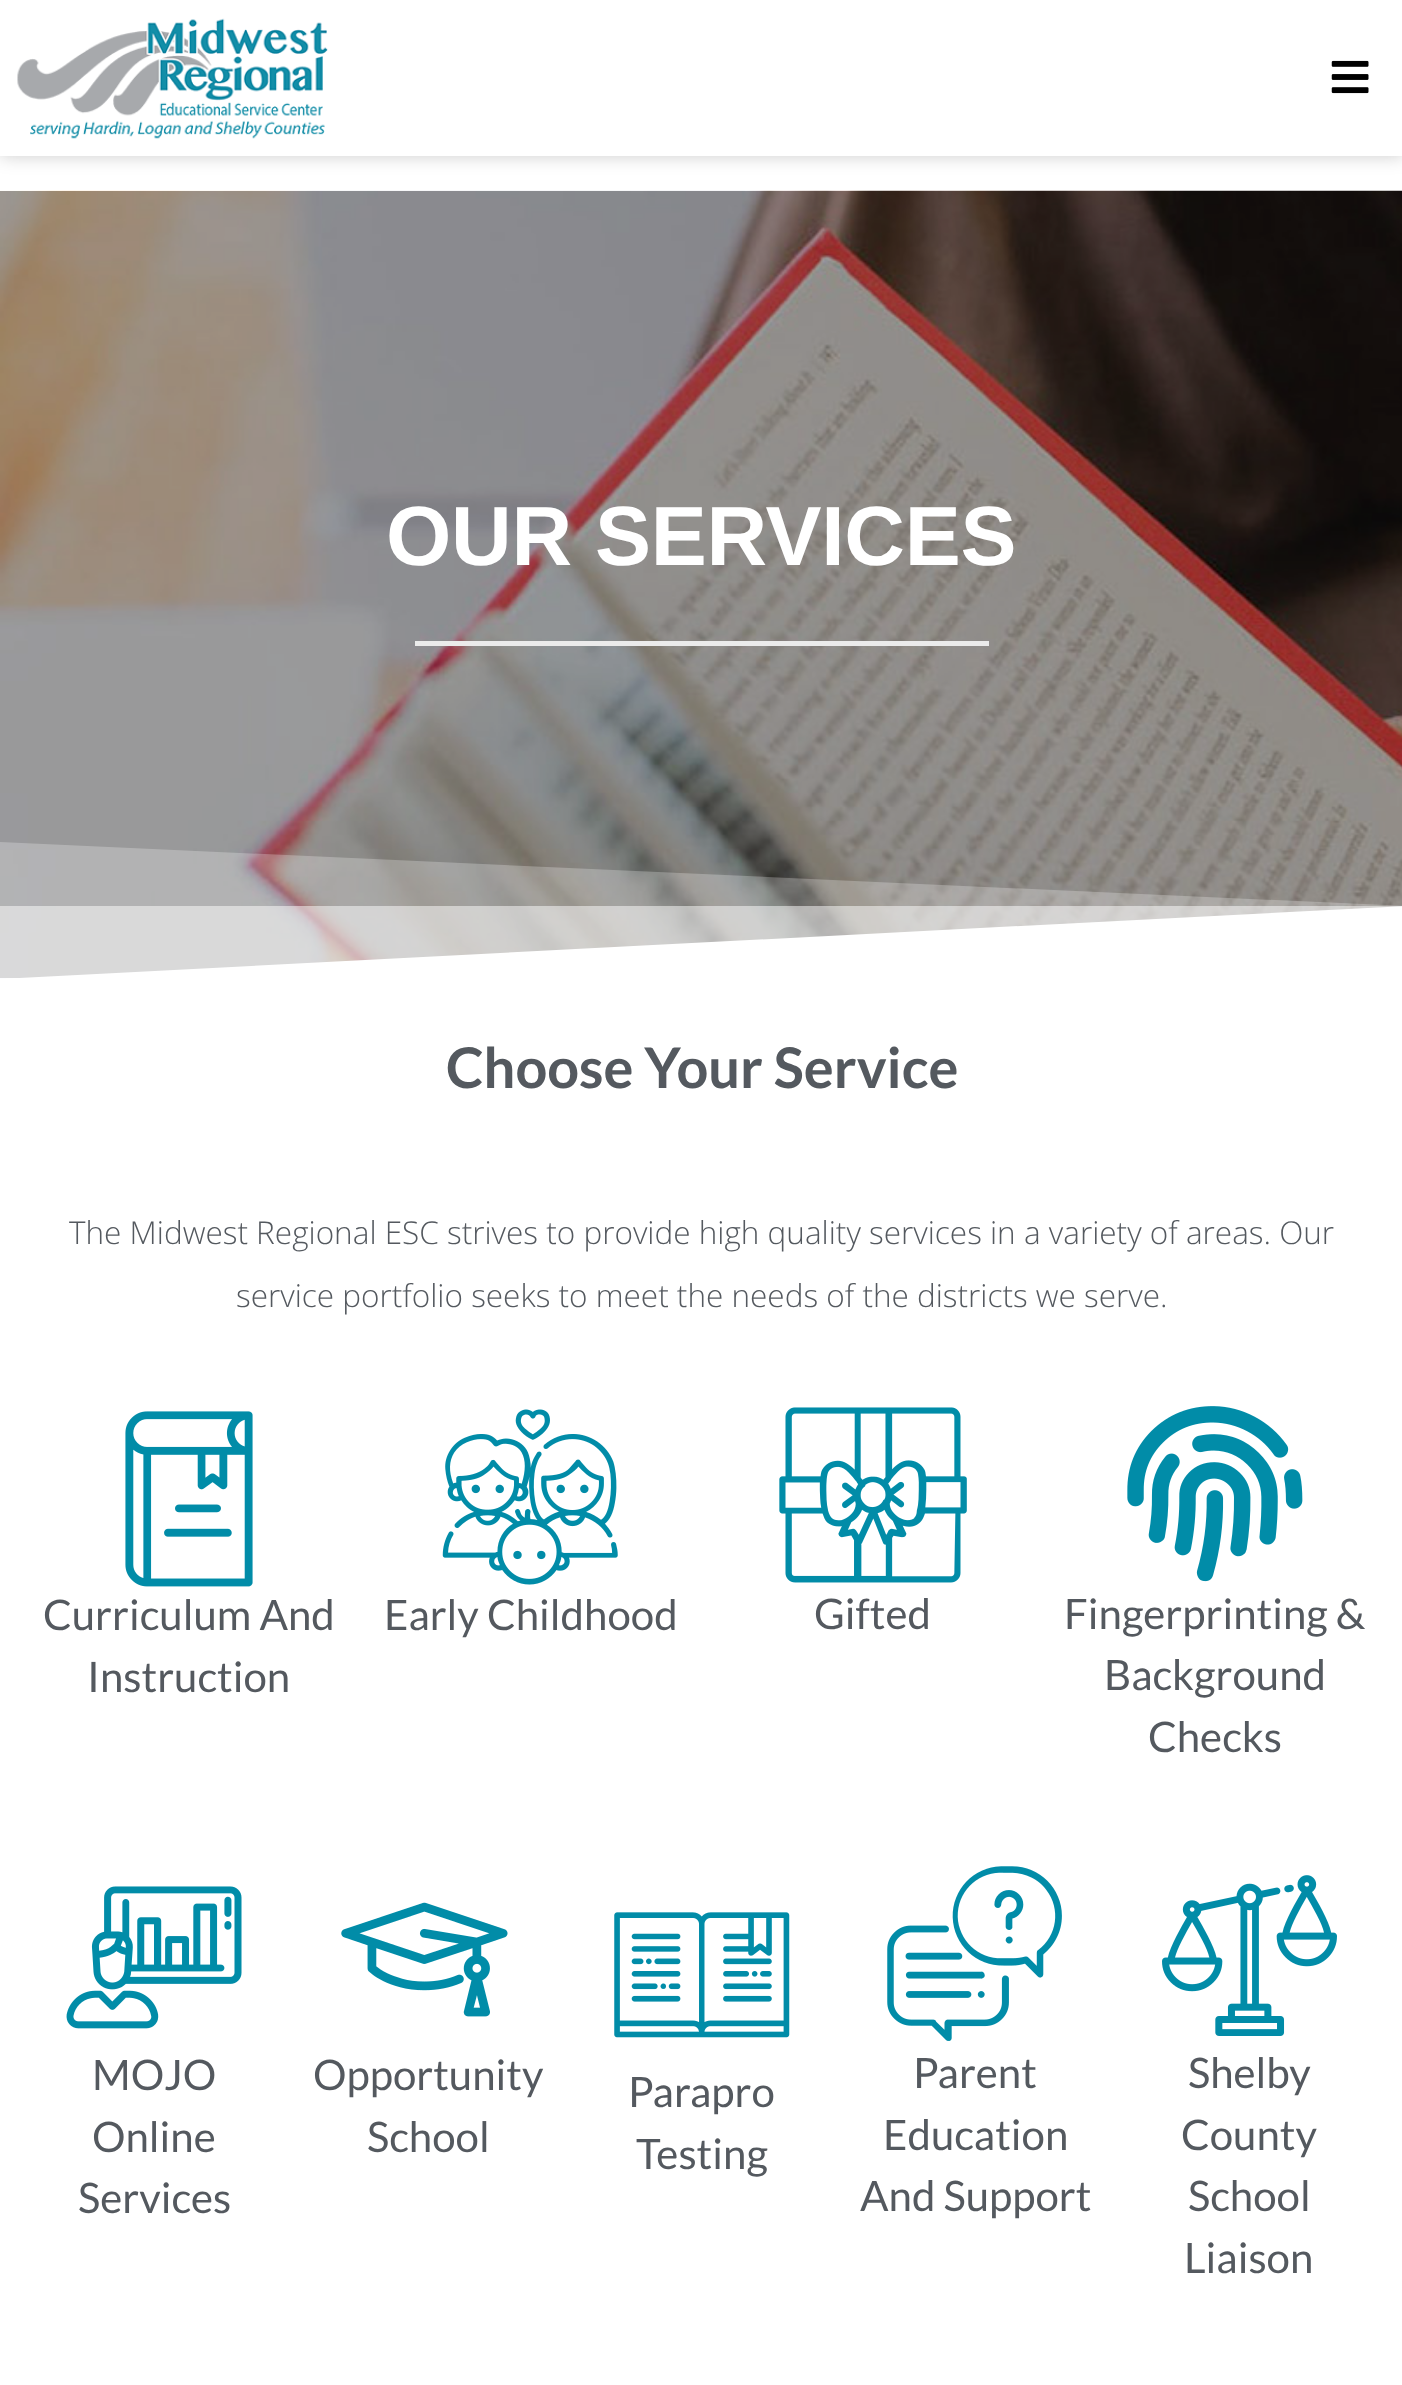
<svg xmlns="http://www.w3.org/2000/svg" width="1402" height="2385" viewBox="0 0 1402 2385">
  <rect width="100%" height="100%" fill="#fff"/>
  <path d="M0 0h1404v156H0z" fill="#00000033" filter="blur(9px)"/>
  <path d="M0 0h1402v156H0z" fill="#fff"/>
  <image x="17" y="18" width="311" height="121" href="img/1.png"/>
  <image x="1331" y="60" width="38" height="34" href="img/2.png"/>
  <image x="0" y="190" width="1402" height="789" href="img/3.png"/>
  <path d="M415 641h574v5H415z" fill="#ebebeb"/>
  <path d="M-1 979H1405V906Z" fill="#fff"/>
  <path d="M0 906h1402v72H0z" fill="#ffffff80"/>
  <path d="M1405 979H-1V842L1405 906Z" fill="#ffffff40"/>
  <image x="125" y="1411" width="128" height="176" href="img/4.png"/>
  <image x="442" y="1409" width="176" height="176" href="img/5.png"/>
  <image x="779" y="1407" width="188" height="176" href="img/6.png"/>
  <image x="1127" y="1406" width="176" height="176" href="img/7.png"/>
  <image x="66" y="1886" width="176" height="143" href="img/8.png"/>
  <image x="341" y="1902" width="167" height="115" href="img/9.png"/>
  <image x="614" y="1912" width="176" height="126" href="img/10.png"/>
  <image x="887" y="1866" width="175" height="175" href="img/11.png"/>
  <image x="1162" y="1875" width="175" height="161" href="img/12.png"/>
  <text x="386" y="565" font-family="Liberation Sans" font-size="84" font-weight="bold" letter-spacing="-0.25" fill="#fff">OUR SERVICES</text>
  <text x="446" y="1088" font-family="Lato" font-size="56" font-weight="bold" fill="#54595f">Choose Your Service</text>
  <g font-family="Open Sans" font-size="31.5" font-weight="300" fill="#54595f">
    <text x="69" y="1244">The Midwest Regional ESC strives to provide high quality services in a variety of areas. Our</text>
    <text x="236" y="1307">service portfolio seeks to meet the needs of the districts we serve.</text>
  </g>
  <g font-family="Lato" font-size="42" fill="#54595f">
    <text x="43" y="1630">Curriculum And</text>
    <text x="87" y="1692">Instruction</text>
    <text x="384" y="1630">Early Childhood</text>
    <text x="814" y="1629">Gifted</text>
    <text x="1064" y="1629">Fingerprinting &amp;</text>
    <text x="1104" y="1690">Background</text>
    <text x="1148" y="1752">Checks</text>
    <text x="92" y="2090">MOJO</text>
    <text x="92" y="2152">Online</text>
    <text x="78" y="2213">Services</text>
    <text x="313" y="2090">Opportunity</text>
    <text x="367" y="2152">School</text>
    <text x="628" y="2107">Parapro</text>
    <text x="636" y="2169">Testing</text>
    <text x="913" y="2088">Parent</text>
    <text x="883" y="2150">Education</text>
    <text x="860" y="2211">And Support</text>
    <text x="1188" y="2088">Shelby</text>
    <text x="1181" y="2150">County</text>
    <text x="1188" y="2211">School</text>
    <text x="1184" y="2273">Liaison</text>
  </g>
</svg>
